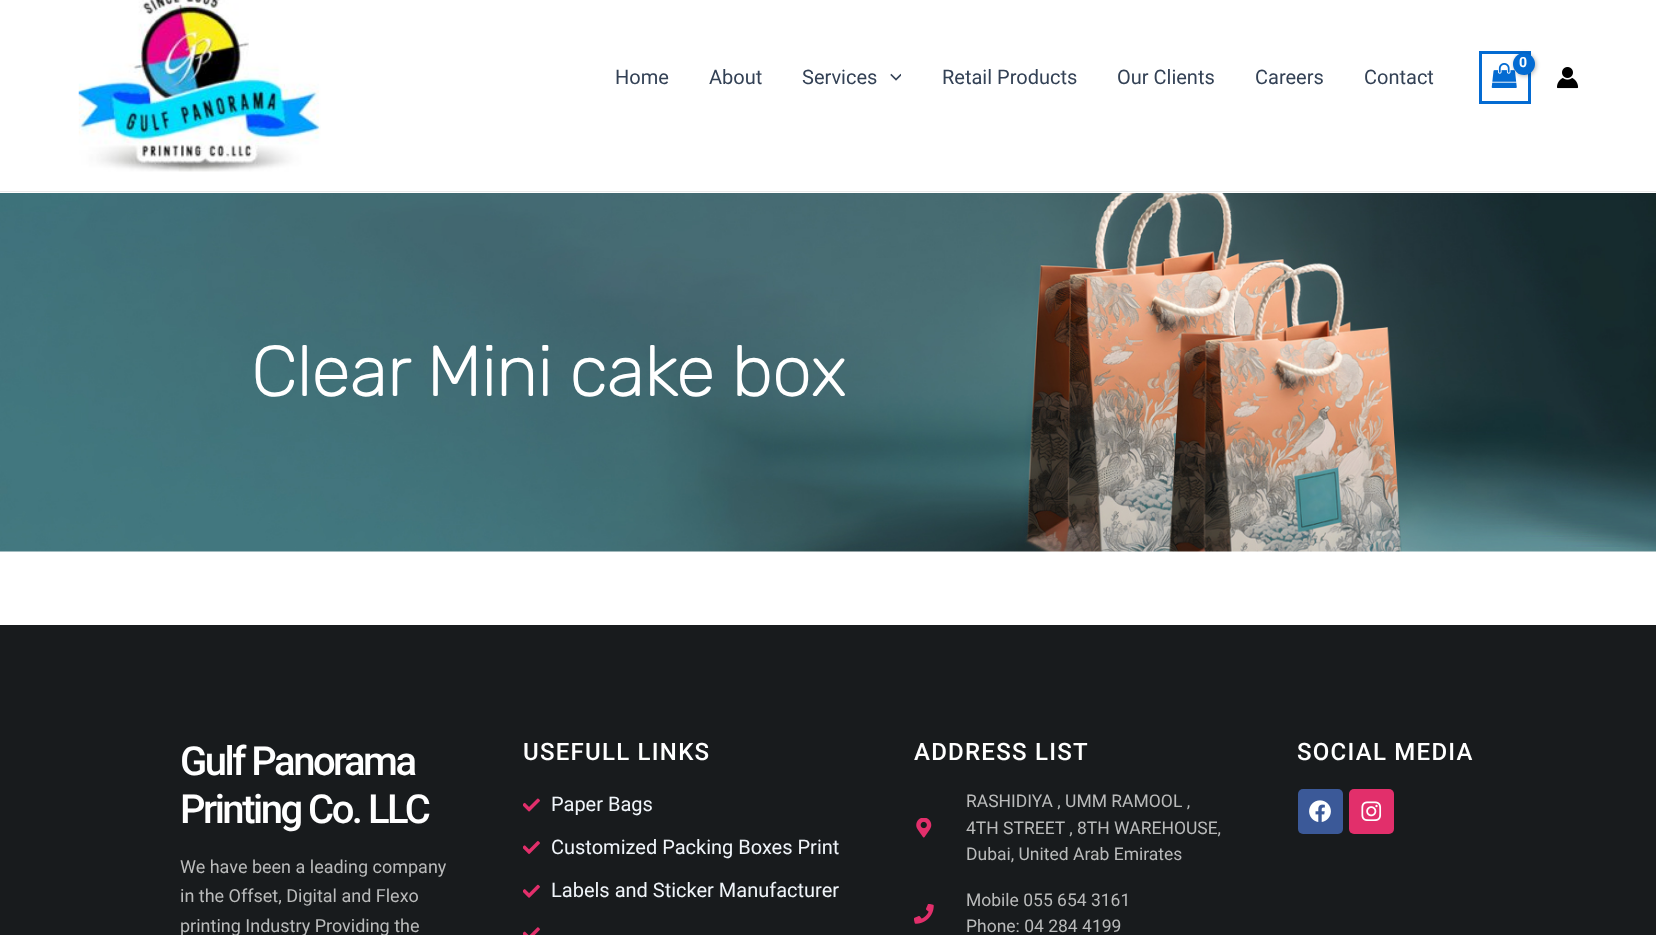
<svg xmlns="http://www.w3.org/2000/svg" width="1656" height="935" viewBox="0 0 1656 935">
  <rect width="100%" height="100%" fill="#fff"/>
  <path d="M0 191h1656v1H0z" fill="#eaeaea"/>
  <image x="78" y="0" width="243" height="172" href="img/1.png"/>
  <path d="M1480.5 52.5h49v50H1480.5z" fill="none" stroke="#046bd2" stroke-width="3"/>
  <image x="1491" y="63" width="26" height="25" href="img/2.png"/>
  <rect x="1514" y="54" width="22" height="22" rx="11" fill="#0000004d" filter="blur(2px)"/>
  <circle cx="1524" cy="64" r="11" fill="#046bd2"/>
  <image x="890" y="73" width="11" height="8" href="img/3.png"/>
  <image x="1557" y="67" width="22" height="22" href="img/4.png"/>
  <image x="0" y="193" width="1656" height="359" href="img/5.png"/>
  <path d="M0 625h1656v310H0z" fill="#181b1d"/>
  <image x="523" y="798" width="17" height="14" href="img/6.png"/>
  <image x="523" y="841" width="17" height="13" href="img/7.png"/>
  <image x="523" y="884" width="17" height="14" href="img/8.png"/>
  <image x="523" y="927" width="17" height="8" href="img/9.png"/>
  <image x="916" y="818" width="16" height="20" href="img/10.png"/>
  <image x="914" y="904" width="20" height="20" href="img/11.png"/>
  <rect x="1298" y="789" width="45" height="45" rx="5" fill="#3b5998"/>
  <image x="1309" y="800" width="22" height="22" href="img/12.png"/>
  <rect x="1349" y="789" width="45" height="45" rx="5" fill="#e22f6b"/>
  <image x="1361" y="801" width="21" height="20" href="img/13.png"/>
  <text x="1519" y="67" font-family="Roboto" font-size="14" font-weight="bold" letter-spacing="-1" fill="#fff">0</text>
  <g font-family="Roboto" font-size="20" fill="#334155">
    <text x="615" y="84">Home</text>
    <text x="709" y="84">About</text>
    <text x="802" y="84">Services</text>
    <text x="942" y="84">Retail Products</text>
    <text x="1117" y="84">Our Clients</text>
    <text x="1255" y="84">Careers</text>
    <text x="1364" y="84">Contact</text>
  </g>
  <text x="251" y="396" font-family="Rubik" font-size="72" font-weight="300" letter-spacing="-1.25" fill="#fff">Clear Mini cake box</text>
  <g font-family="Roboto" font-size="40" font-weight="500" letter-spacing="-2.5" fill="#fff">
    <text x="180" y="775">Gulf Panorama</text>
    <text x="180" y="823">Printing Co. LLC</text>
  </g>
  <g font-family="Roboto" font-size="18" fill="#babbbb">
    <text x="180" y="873">We have been a leading company</text>
    <text x="180" y="902">in the Offset, Digital and Flexo</text>
    <text x="180" y="932">printing Industry Providing the</text>
  </g>
  <text x="523" y="760" font-family="Roboto" font-size="24" font-weight="500" letter-spacing="1.25" fill="#fff">USEFULL LINKS</text>
  <g font-family="Roboto" font-size="20" fill="#f0f5fa">
    <text x="551" y="811">Paper Bags</text>
    <text x="551" y="854">Customized Packing Boxes Print</text>
    <text x="551" y="897">Labels and Sticker Manufacturer</text>
  </g>
  <text x="914" y="760" font-family="Roboto" font-size="24" font-weight="500" letter-spacing="1.25" fill="#fff">ADDRESS LIST</text>
  <g font-family="Roboto" font-size="17.5" fill="#babbbb">
    <text x="966" y="807">RASHIDIYA , UMM RAMOOL ,</text>
    <text x="966" y="834">4TH STREET , 8TH WAREHOUSE,</text>
    <text x="966" y="860">Dubai, United Arab Emirates</text>
    <text x="966" y="906">Mobile 055 654 3161</text>
    <text x="966" y="932">Phone: 04 284 4199</text>
  </g>
  <text x="1297" y="760" font-family="Roboto" font-size="24" font-weight="500" letter-spacing="1.25" fill="#fff">SOCIAL MEDIA</text>
</svg>
